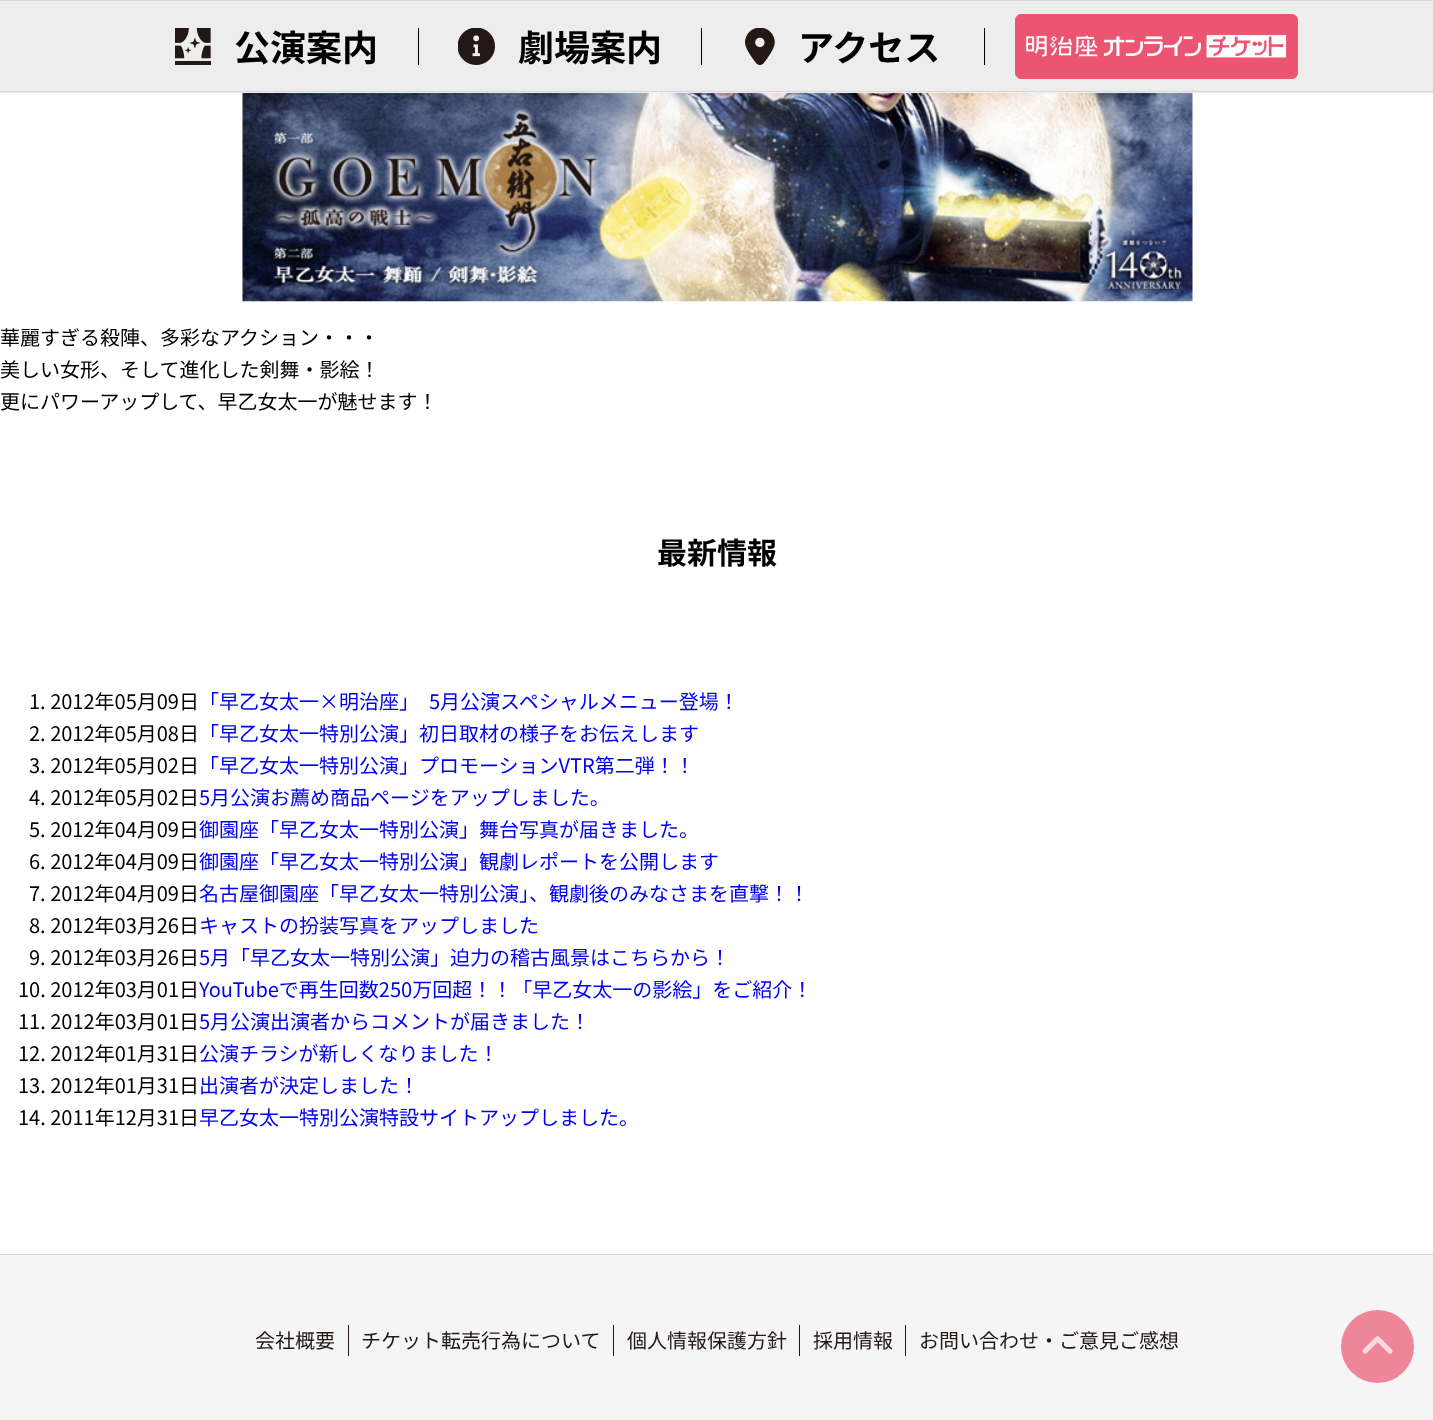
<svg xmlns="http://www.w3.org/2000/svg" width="1433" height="1420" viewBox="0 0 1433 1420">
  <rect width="100%" height="100%" fill="#fff"/>
  <path d="M0 1h1433v92H0z" fill="#ededed"/>
  <path d="M0 0h1433v1H0z" fill="#d7d7d7"/>
  <path d="M0 91h1433v1H0z" fill="#d7d7d7"/>
  <path d="M418 28h1v37H418z" fill="#000"/>
  <image x="175" y="28" width="36" height="37" href="img/1.png"/>
  <path d="M701 28h1v37H701z" fill="#000"/>
  <image x="458" y="28" width="37" height="37" href="img/2.png"/>
  <path d="M984 28h1v37H984z" fill="#000"/>
  <image x="745" y="28" width="30" height="37" href="img/3.png"/>
  <rect x="1015.5" y="14.5" width="282" height="64" rx="5.5" fill="#ec5571" stroke="#ec5571"/>
  <image x="1026" y="34" width="261" height="24" href="img/4.png"/>
  <image x="242" y="93" width="951" height="209" href="img/5.png"/>
  <path d="M0 1255h1433v165H0z" fill="#f5f5f5"/>
  <path d="M0 1254h1433v1H0z" fill="#d7d7d7"/>
  <path d="M348 1325h1v31H348z" fill="#231815"/>
  <path d="M613 1325h1v31H613z" fill="#231815"/>
  <path d="M799 1325h1v31H799z" fill="#231815"/>
  <path d="M905 1325h1v31H905z" fill="#231815"/>
  <circle cx="1377.5" cy="1346.5" r="36.5" fill="#ef8599"/>
  <image x="1362" y="1336" width="31" height="18" href="img/6.png"/>
  <g font-family="Noto Sans JP" font-size="36" font-weight="bold" fill="#000">
    <text x="234" y="61">公演案内</text>
    <text x="518" y="61">劇場案内</text>
    <text x="798" y="61">アクセス</text>
  </g>
  <g font-family="Noto Sans JP" font-size="20" fill="#000">
    <text x="0" y="345">華麗すぎる殺陣、多彩なアクション・・・</text>
    <text x="0" y="377">美しい女形、そして進化した剣舞・影絵！</text>
    <text x="0" y="409">更にパワーアップして、早乙女太一が魅せます！</text>
  </g>
  <text x="657" y="564" font-family="Noto Sans JP" font-size="30" font-weight="bold" fill="#000">最新情報</text>
  <text x="29" y="709" font-family="Noto Sans JP" font-size="20" fill="#000">1. 2012年05月09日</text>
  <text x="199" y="709" font-family="Noto Sans JP" font-size="20" fill="#00e">「早乙女太一×明治座」　5月公演スペシャルメニュー登場！</text>
  <text x="29" y="741" font-family="Noto Sans JP" font-size="20" fill="#000">2. 2012年05月08日</text>
  <text x="199" y="741" font-family="Noto Sans JP" font-size="20" fill="#00e">「早乙女太一特別公演」初日取材の様子をお伝えします</text>
  <text x="29" y="773" font-family="Noto Sans JP" font-size="20" fill="#000">3. 2012年05月02日</text>
  <text x="199" y="773" font-family="Noto Sans JP" font-size="20" fill="#00e">「早乙女太一特別公演」プロモーションVTR第二弾！！</text>
  <text x="29" y="805" font-family="Noto Sans JP" font-size="20" fill="#000">4. 2012年05月02日</text>
  <text x="199" y="805" font-family="Noto Sans JP" font-size="20" fill="#00e">5月公演お薦め商品ページをアップしました。</text>
  <text x="29" y="837" font-family="Noto Sans JP" font-size="20" fill="#000">5. 2012年04月09日</text>
  <text x="199" y="837" font-family="Noto Sans JP" font-size="20" fill="#00e">御園座「早乙女太一特別公演」舞台写真が届きました。</text>
  <text x="29" y="869" font-family="Noto Sans JP" font-size="20" fill="#000">6. 2012年04月09日</text>
  <text x="199" y="869" font-family="Noto Sans JP" font-size="20" fill="#00e">御園座「早乙女太一特別公演」観劇レポートを公開します</text>
  <text x="29" y="901" font-family="Noto Sans JP" font-size="20" fill="#000">7. 2012年04月09日</text>
  <text x="199" y="901" font-family="Noto Sans JP" font-size="20" fill="#00e">名古屋御園座「早乙女太一特別公演」、観劇後のみなさまを直撃！！</text>
  <text x="29" y="933" font-family="Noto Sans JP" font-size="20" fill="#000">8. 2012年03月26日</text>
  <text x="199" y="933" font-family="Noto Sans JP" font-size="20" fill="#00e">キャストの扮装写真をアップしました</text>
  <text x="29" y="965" font-family="Noto Sans JP" font-size="20" fill="#000">9. 2012年03月26日</text>
  <text x="199" y="965" font-family="Noto Sans JP" font-size="20" fill="#00e">5月「早乙女太一特別公演」迫力の稽古風景はこちらから！</text>
  <text x="18" y="997" font-family="Noto Sans JP" font-size="20" fill="#000">10. 2012年03月01日</text>
  <text x="199" y="997" font-family="Noto Sans JP" font-size="20" fill="#00e">YouTubeで再生回数250万回超！！「早乙女太一の影絵」をご紹介！</text>
  <text x="18" y="1029" font-family="Noto Sans JP" font-size="20" fill="#000">11. 2012年03月01日</text>
  <text x="199" y="1029" font-family="Noto Sans JP" font-size="20" fill="#00e">5月公演出演者からコメントが届きました！</text>
  <text x="18" y="1061" font-family="Noto Sans JP" font-size="20" fill="#000">12. 2012年01月31日</text>
  <text x="199" y="1061" font-family="Noto Sans JP" font-size="20" fill="#00e">公演チラシが新しくなりました！</text>
  <text x="18" y="1093" font-family="Noto Sans JP" font-size="20" fill="#000">13. 2012年01月31日</text>
  <text x="199" y="1093" font-family="Noto Sans JP" font-size="20" fill="#00e">出演者が決定しました！</text>
  <text x="18" y="1125" font-family="Noto Sans JP" font-size="20" fill="#000">14. 2011年12月31日</text>
  <text x="199" y="1125" font-family="Noto Sans JP" font-size="20" fill="#00e">早乙女太一特別公演特設サイトアップしました。</text>
  <g font-family="Noto Sans JP" font-size="20" fill="#231815">
    <text x="255" y="1348">会社概要</text>
    <text x="361" y="1348">チケット転売行為について</text>
    <text x="627" y="1348">個人情報保護方針</text>
    <text x="813" y="1348">採用情報</text>
    <text x="919" y="1348">お問い合わせ・ご意見ご感想</text>
  </g>
</svg>
